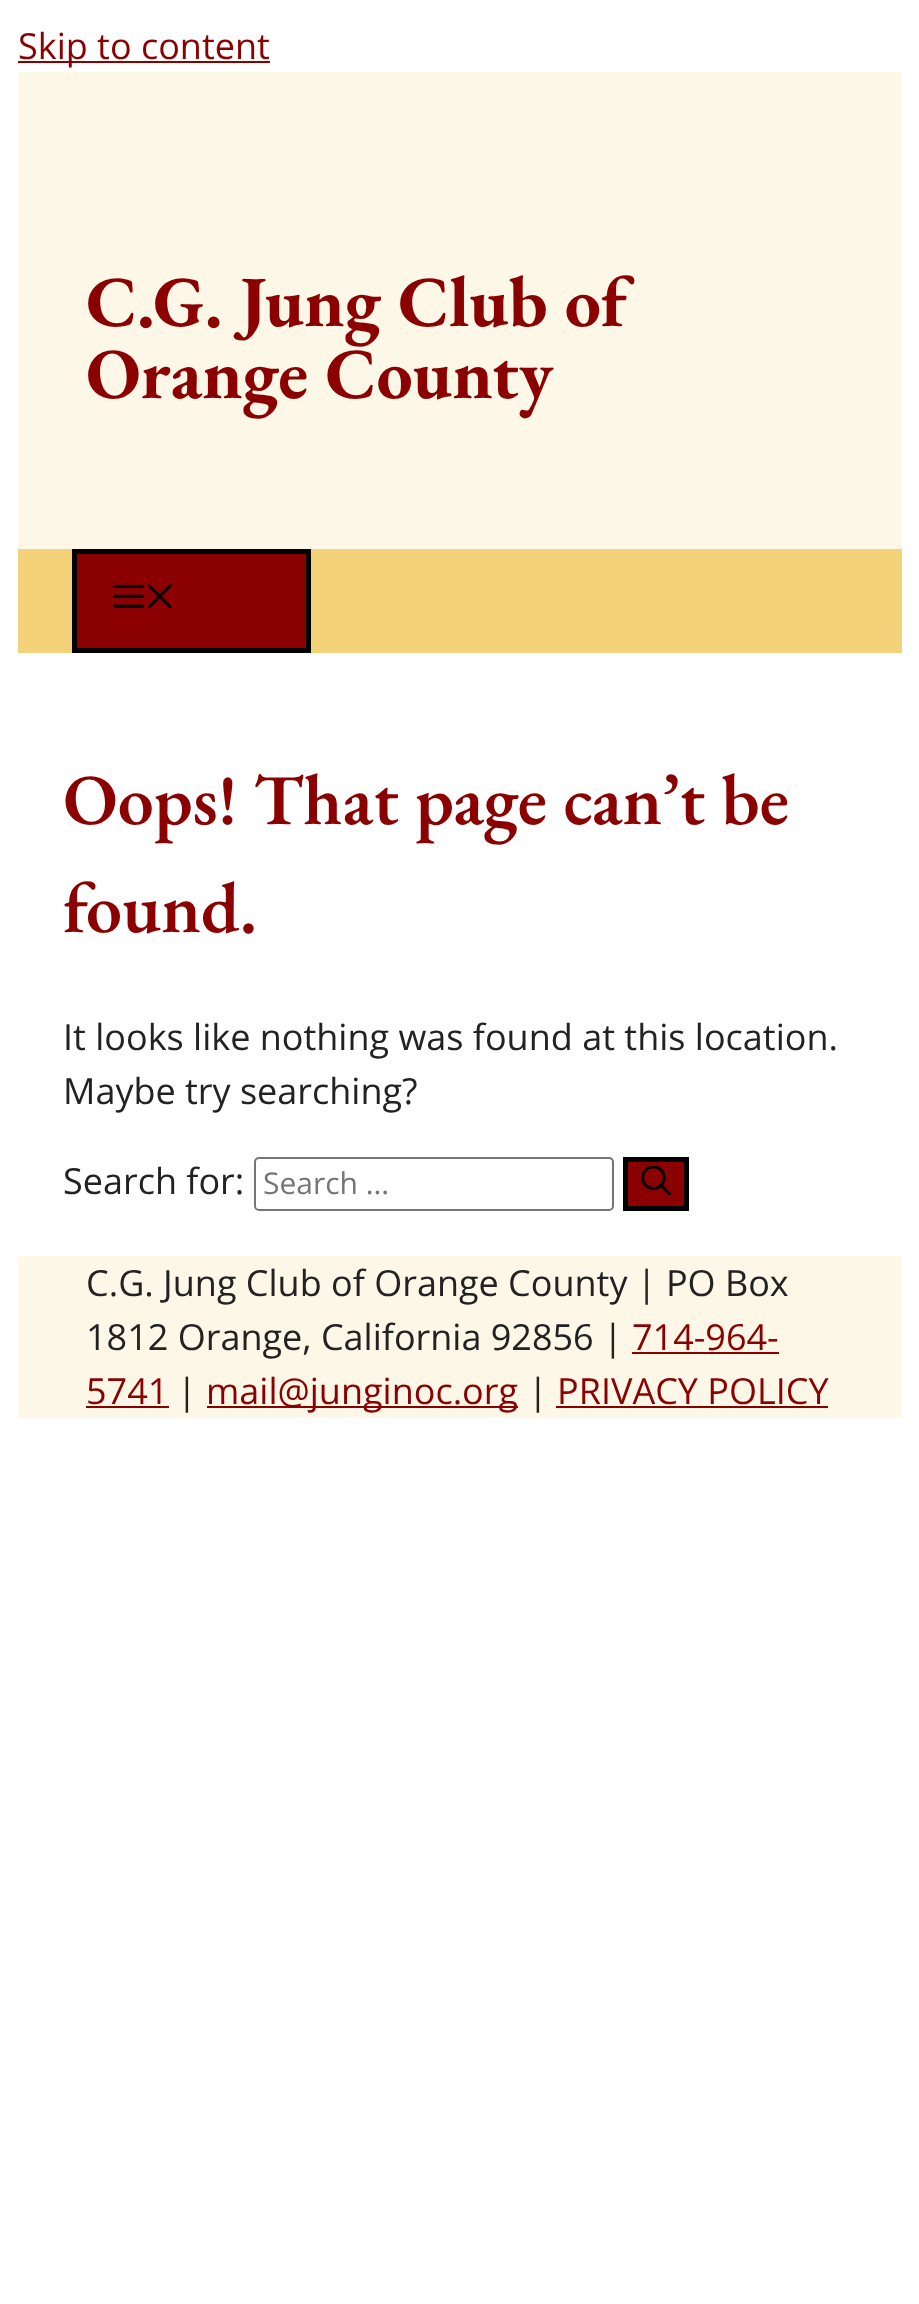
<svg xmlns="http://www.w3.org/2000/svg" width="919" height="2304" viewBox="0 0 919 2304">
  <rect width="100%" height="100%" fill="#fff"/>
  <path d="M18 61h252v2H18z" fill="#8b0000"/>
  <path d="M18 72h884v477H18z" fill="#fdf7e7"/>
  <path d="M18 549h884v104H18z" fill="#f4d27a"/>
  <path d="M74.5 551.5h234v99H74.5z" fill="#8b0000" stroke="#000" stroke-width="5"/>
  <image x="113" y="584" width="31" height="24" href="img/1.png"/>
  <image x="148" y="584" width="24" height="24" href="img/2.png"/>
  <rect x="255" y="1158" width="358" height="52" rx="4" fill="none" stroke="#767676" stroke-width="2"/>
  <path d="M625.5 1159.5h61v49H625.5z" fill="#8b0000" stroke="#000" stroke-width="5"/>
  <image x="641" y="1166" width="30" height="29" href="img/3.png"/>
  <path d="M18 1256h884v162H18z" fill="#fdf7e7"/>
  <path d="M632 1352h147v2H632z" fill="#8b0000"/>
  <path d="M86 1406h83v2H86z" fill="#8b0000"/>
  <path d="M207 1406h311v2H207z" fill="#8b0000"/>
  <path d="M556 1406h272v2H556z" fill="#8b0000"/>
  <text x="18" y="59" font-family="Open Sans" font-size="36" fill="#8b0000">Skip to content</text>
  <g font-family="EB Garamond" font-size="72" font-weight="bold" fill="#8b0000">
    <text x="86" y="326">C.G. Jung Club of</text>
    <text x="86" y="398">Orange County</text>
  </g>
  <g font-family="EB Garamond" font-size="72" font-weight="600" fill="#8b0000">
    <text x="63" y="824">Oops! That page can’t be</text>
    <text x="63" y="932">found.</text>
  </g>
  <g font-family="Open Sans" font-size="36" fill="#222">
    <text x="63" y="1050">It looks like nothing was found at this location.</text>
    <text x="63" y="1104">Maybe try searching?</text>
    <text x="63" y="1194">Search for:</text>
  </g>
  <text x="263" y="1194" font-family="Open Sans" font-size="30" fill="#757575">Search …</text>
  <g font-family="Open Sans" font-size="36" fill="#222">
    <text x="86" y="1296">C.G. Jung Club of Orange County | PO Box</text>
    <text x="86" y="1350">1812 Orange, California 92856 |</text>
  </g>
  <g font-family="Open Sans" font-size="36" fill="#8b0000">
    <text x="632" y="1350">714-964-</text>
    <text x="86" y="1404">5741</text>
  </g>
  <text x="177" y="1404" font-family="Open Sans" font-size="36" fill="#222">|</text>
  <text x="206" y="1404" font-family="Open Sans" font-size="36" fill="#8b0000">mail@junginoc.org</text>
  <text x="528" y="1404" font-family="Open Sans" font-size="36" fill="#222">|</text>
  <text x="557" y="1404" font-family="Open Sans" font-size="36" fill="#8b0000">PRIVACY POLICY</text>
</svg>
